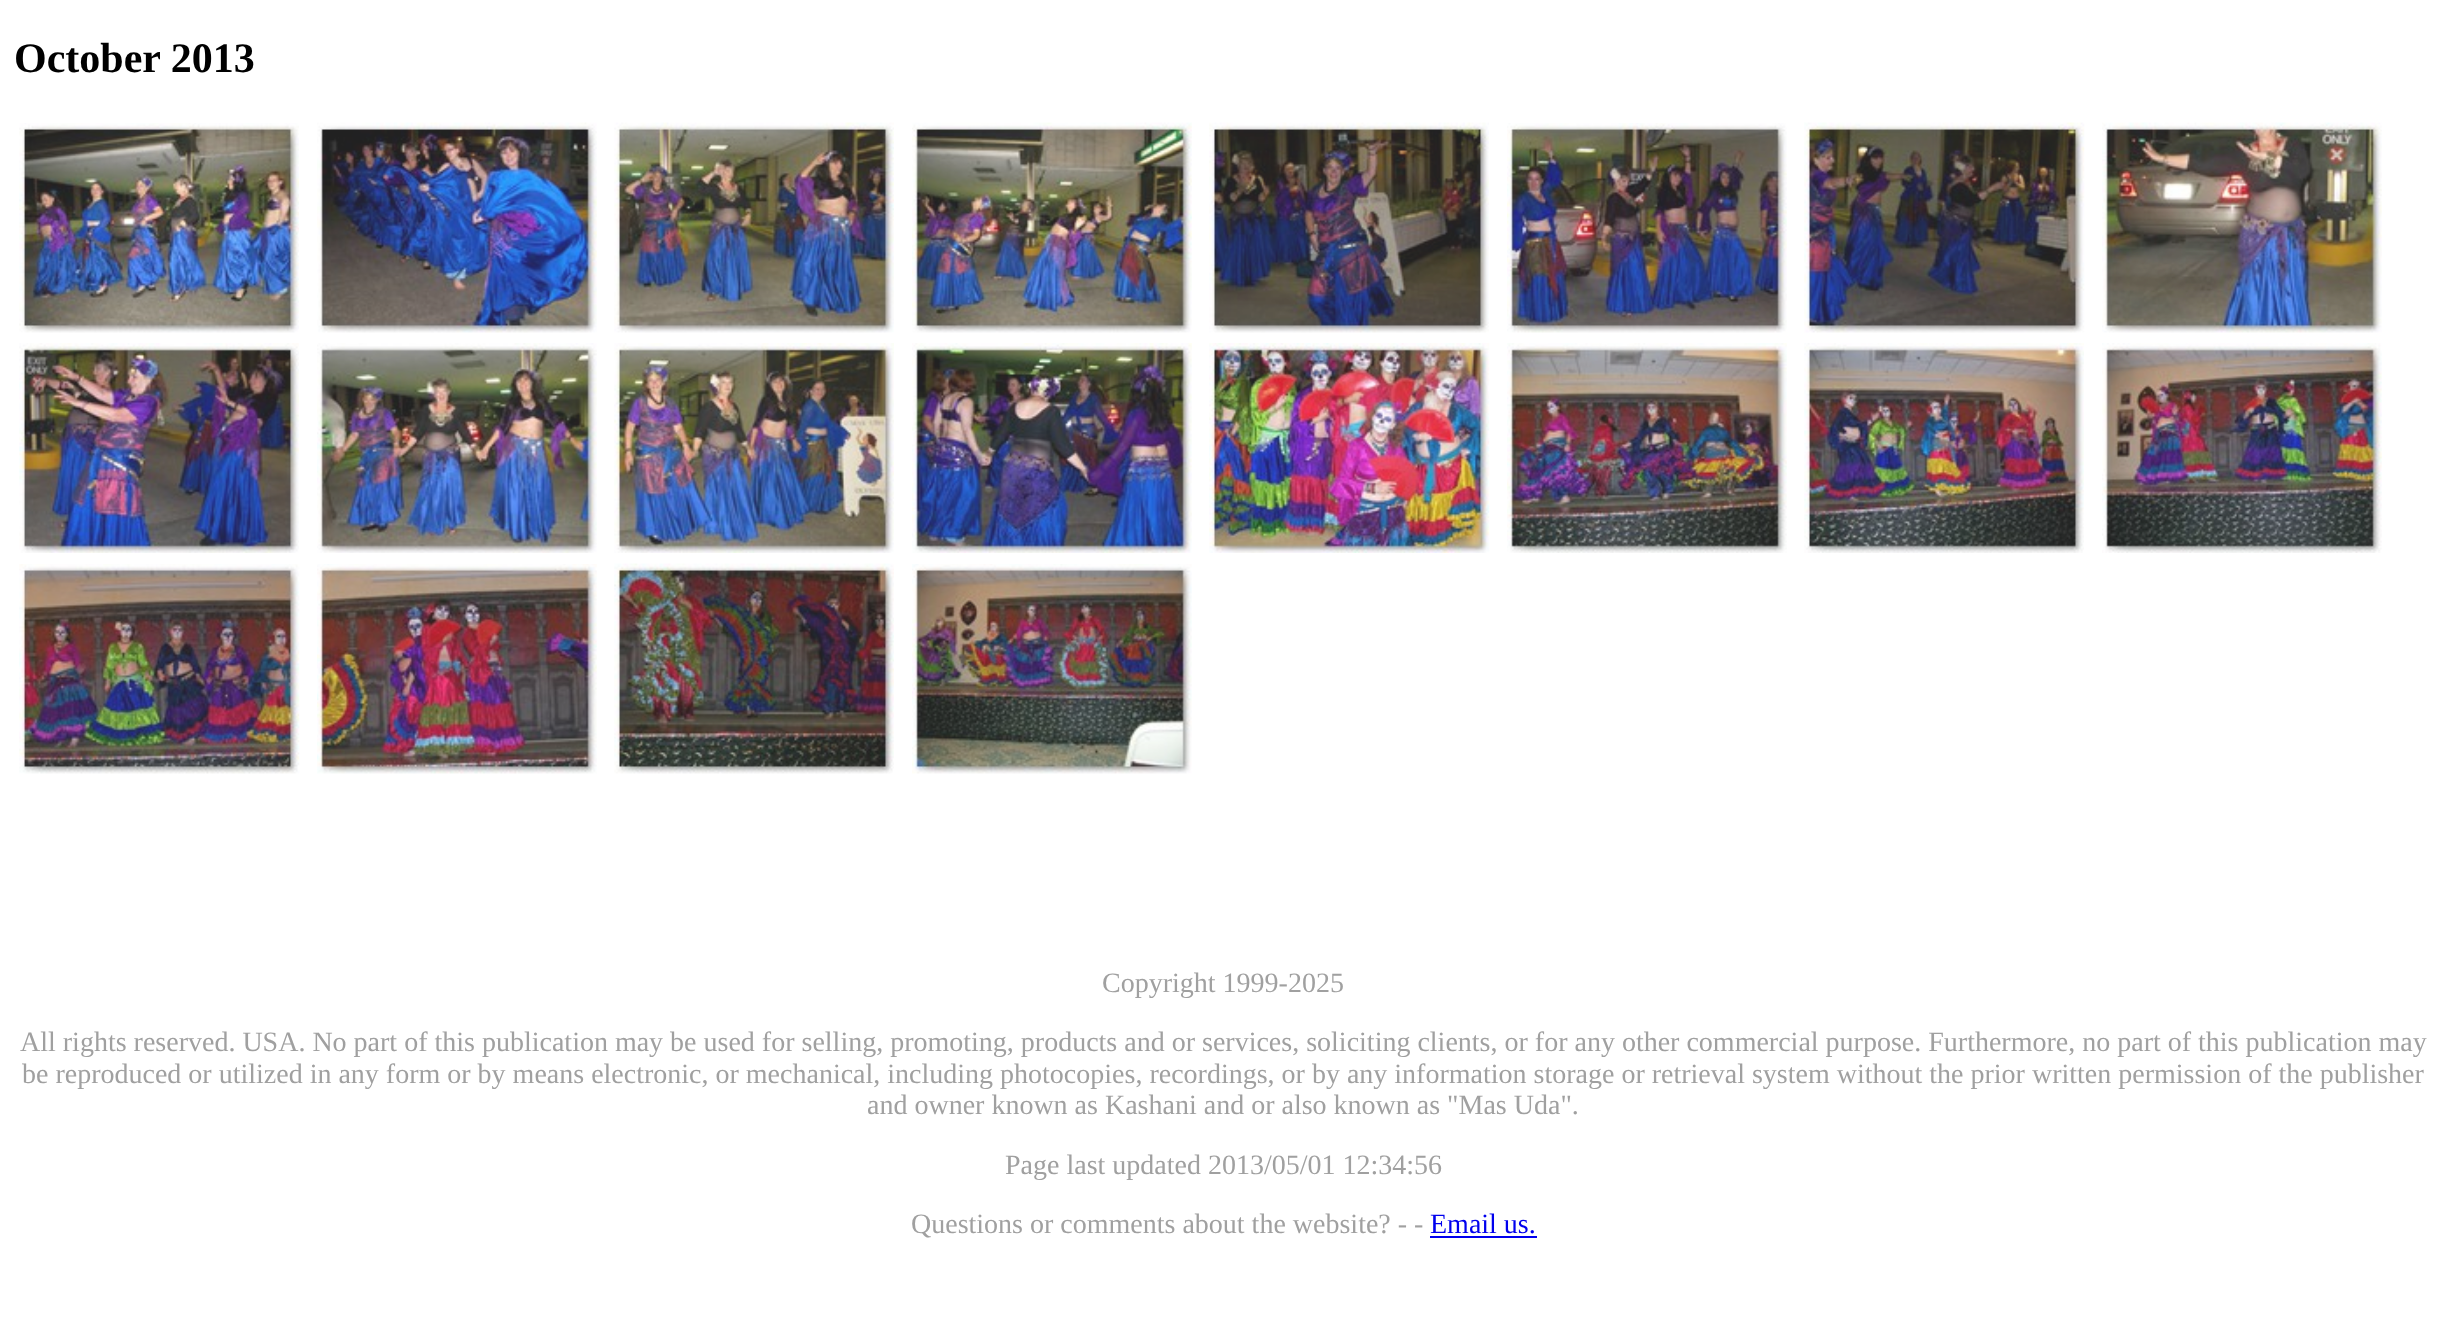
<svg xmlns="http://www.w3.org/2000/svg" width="2445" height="1332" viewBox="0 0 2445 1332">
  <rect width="100%" height="100%" fill="#fff"/>
  <image x="19" y="123" width="280" height="210" href="img/1.png"/>
  <image x="317" y="122" width="280" height="211" href="img/2.png"/>
  <image x="614" y="122" width="280" height="211" href="img/3.png"/>
  <image x="912" y="122" width="280" height="211" href="img/4.png"/>
  <image x="1209" y="122" width="280" height="211" href="img/5.png"/>
  <image x="1507" y="123" width="280" height="210" href="img/6.png"/>
  <image x="1804" y="122" width="281" height="211" href="img/7.png"/>
  <image x="2102" y="122" width="280" height="211" href="img/8.png"/>
  <image x="19" y="343" width="280" height="210" href="img/9.png"/>
  <image x="317" y="343" width="280" height="210" href="img/10.png"/>
  <image x="614" y="343" width="280" height="210" href="img/11.png"/>
  <image x="912" y="343" width="280" height="210" href="img/12.png"/>
  <image x="1209" y="343" width="281" height="210" href="img/13.png"/>
  <image x="1507" y="343" width="280" height="210" href="img/14.png"/>
  <image x="1804" y="343" width="280" height="210" href="img/15.png"/>
  <image x="2102" y="343" width="280" height="210" href="img/16.png"/>
  <image x="19" y="564" width="281" height="210" href="img/17.png"/>
  <image x="317" y="564" width="280" height="210" href="img/18.png"/>
  <image x="614" y="563" width="280" height="211" href="img/19.png"/>
  <image x="912" y="564" width="280" height="210" href="img/20.png"/>
  <path d="M1430 1236h107v2H1430z" fill="#00e"/>
  <text x="14" y="72" font-family="Liberation Serif" font-size="42" font-weight="bold" fill="#000">October 2013</text>
  <g font-family="Liberation Serif" font-size="28" fill="#a0a0a0">
    <text x="1102" y="992">Copyright 1999-2025</text>
    <text x="20" y="1051">All rights reserved. USA. No part of this publication may be used for selling, promoting, products and or services, soliciting clients, or for any other commercial purpose. Furthermore, no part of this publication may</text>
    <text x="22" y="1083">be reproduced or utilized in any form or by means electronic, or mechanical, including photocopies, recordings, or by any information storage or retrieval system without the prior written permission of the publisher</text>
    <text x="867" y="1114">and owner known as Kashani and or also known as "Mas Uda".</text>
    <text x="1005" y="1174">Page last updated 2013/05/01 12:34:56</text>
    <text x="911" y="1233">Questions or comments about the website? - -</text>
  </g>
  <text x="1430" y="1233" font-family="Liberation Serif" font-size="28" fill="#00e">Email us.</text>
</svg>
